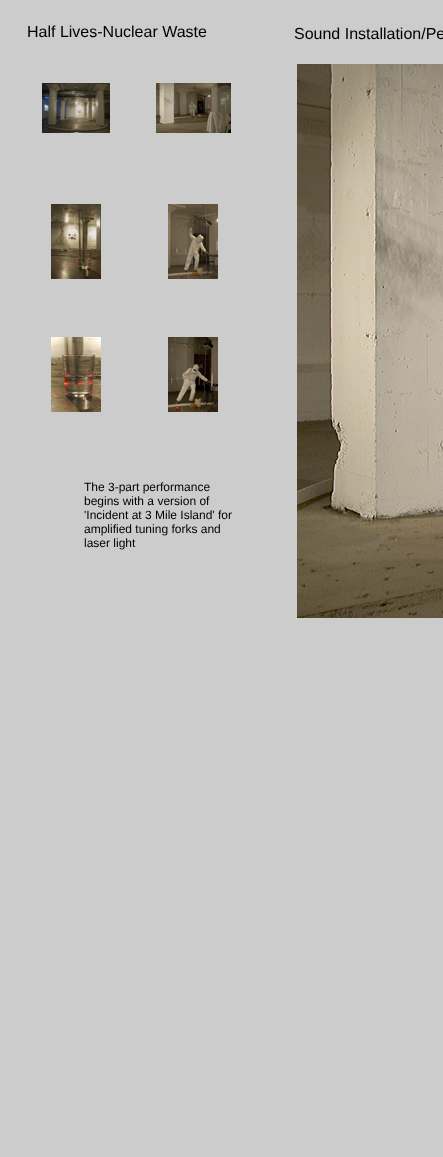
<svg xmlns="http://www.w3.org/2000/svg" width="443" height="1157" viewBox="0 0 443 1157">
  <rect width="100%" height="100%" fill="#ccc"/>
  <image x="42" y="83" width="68" height="50" href="img/1.png"/>
  <image x="297" y="64" width="146" height="554" href="img/2.png"/>
  <image x="156" y="83" width="75" height="50" href="img/3.png"/>
  <image x="51" y="204" width="50" height="75" href="img/4.png"/>
  <image x="168" y="204" width="50" height="75" href="img/5.png"/>
  <image x="51" y="337" width="50" height="75" href="img/6.png"/>
  <image x="168" y="337" width="50" height="75" href="img/7.png"/>
  <g font-family="Liberation Sans" font-size="16" fill="#000">
    <text x="27" y="37">Half Lives-Nuclear Waste</text>
    <text x="294" y="39">Sound Installation/Pe</text>
  </g>
  <g font-family="Liberation Sans" font-size="12" fill="#000">
    <text x="84" y="491">The 3-part performance</text>
    <text x="84" y="505">begins with a version of</text>
    <text x="84" y="519">'Incident at 3 Mile Island' for</text>
    <text x="84" y="533">amplified tuning forks and</text>
    <text x="84" y="547">laser light</text>
  </g>
</svg>
